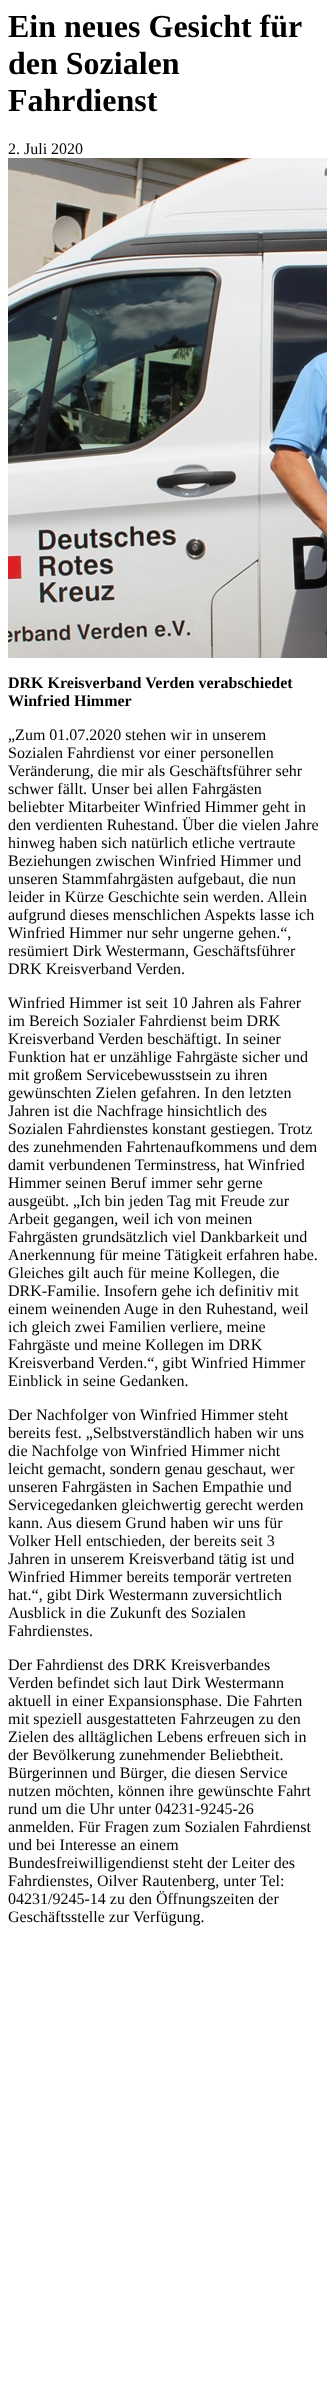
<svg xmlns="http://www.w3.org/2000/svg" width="327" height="2388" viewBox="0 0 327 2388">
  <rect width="100%" height="100%" fill="#fff"/>
  <image x="8" y="158" width="319" height="500" href="img/1.png"/>
  <g font-family="Liberation Serif" font-size="32" font-weight="bold" fill="#000">
    <text x="8" y="37">Ein neues Gesicht für</text>
    <text x="8" y="74">den Sozialen</text>
    <text x="8" y="111">Fahrdienst</text>
  </g>
  <text x="8" y="154" font-family="Liberation Serif" font-size="16" fill="#000">2. Juli 2020</text>
  <g font-family="Liberation Serif" font-size="16" font-weight="bold" fill="#000">
    <text x="8" y="688">DRK Kreisverband Verden verabschiedet</text>
    <text x="8" y="706">Winfried Himmer</text>
  </g>
  <g font-family="Liberation Serif" font-size="16" fill="#000">
    <text x="8" y="740">„Zum 01.07.2020 stehen wir in unserem</text>
    <text x="8" y="758">Sozialen Fahrdienst vor einer personellen</text>
    <text x="8" y="776">Veränderung, die mir als Geschäftsführer sehr</text>
    <text x="8" y="794">schwer fällt. Unser bei allen Fahrgästen</text>
    <text x="8" y="812">beliebter Mitarbeiter Winfried Himmer geht in</text>
    <text x="8" y="830">den verdienten Ruhestand. Über die vielen Jahre</text>
    <text x="8" y="848">hinweg haben sich natürlich etliche vertraute</text>
    <text x="8" y="866">Beziehungen zwischen Winfried Himmer und</text>
    <text x="8" y="884">unseren Stammfahrgästen aufgebaut, die nun</text>
    <text x="8" y="902">leider in Kürze Geschichte sein werden. Allein</text>
    <text x="8" y="920">aufgrund dieses menschlichen Aspekts lasse ich</text>
    <text x="8" y="938">Winfried Himmer nur sehr ungerne gehen.“,</text>
    <text x="8" y="956">resümiert Dirk Westermann, Geschäftsführer</text>
    <text x="8" y="974">DRK Kreisverband Verden.</text>
    <text x="8" y="1008">Winfried Himmer ist seit 10 Jahren als Fahrer</text>
    <text x="8" y="1026">im Bereich Sozialer Fahrdienst beim DRK</text>
    <text x="8" y="1044">Kreisverband Verden beschäftigt. In seiner</text>
    <text x="8" y="1062">Funktion hat er unzählige Fahrgäste sicher und</text>
    <text x="8" y="1080">mit großem Servicebewusstsein zu ihren</text>
    <text x="8" y="1098">gewünschten Zielen gefahren. In den letzten</text>
    <text x="8" y="1116">Jahren ist die Nachfrage hinsichtlich des</text>
    <text x="8" y="1134">Sozialen Fahrdienstes konstant gestiegen. Trotz</text>
    <text x="8" y="1152">des zunehmenden Fahrtenaufkommens und dem</text>
    <text x="8" y="1170">damit verbundenen Terminstress, hat Winfried</text>
    <text x="8" y="1188">Himmer seinen Beruf immer sehr gerne</text>
    <text x="8" y="1206">ausgeübt. „Ich bin jeden Tag mit Freude zur</text>
    <text x="8" y="1224">Arbeit gegangen, weil ich von meinen</text>
    <text x="8" y="1242">Fahrgästen grundsätzlich viel Dankbarkeit und</text>
    <text x="8" y="1260">Anerkennung für meine Tätigkeit erfahren habe.</text>
    <text x="8" y="1278">Gleiches gilt auch für meine Kollegen, die</text>
    <text x="8" y="1296">DRK-Familie. Insofern gehe ich definitiv mit</text>
    <text x="8" y="1314">einem weinenden Auge in den Ruhestand, weil</text>
    <text x="8" y="1332">ich gleich zwei Familien verliere, meine</text>
    <text x="8" y="1350">Fahrgäste und meine Kollegen im DRK</text>
    <text x="8" y="1368">Kreisverband Verden.“, gibt Winfried Himmer</text>
    <text x="8" y="1386">Einblick in seine Gedanken.</text>
    <text x="8" y="1420">Der Nachfolger von Winfried Himmer steht</text>
    <text x="8" y="1438">bereits fest. „Selbstverständlich haben wir uns</text>
    <text x="8" y="1456">die Nachfolge von Winfried Himmer nicht</text>
    <text x="8" y="1474">leicht gemacht, sondern genau geschaut, wer</text>
    <text x="8" y="1492">unseren Fahrgästen in Sachen Empathie und</text>
    <text x="8" y="1510">Servicegedanken gleichwertig gerecht werden</text>
    <text x="8" y="1528">kann. Aus diesem Grund haben wir uns für</text>
    <text x="8" y="1546">Volker Hell entschieden, der bereits seit 3</text>
    <text x="8" y="1564">Jahren in unserem Kreisverband tätig ist und</text>
    <text x="8" y="1582">Winfried Himmer bereits temporär vertreten</text>
    <text x="8" y="1600">hat.“, gibt Dirk Westermann zuversichtlich</text>
    <text x="8" y="1618">Ausblick in die Zukunft des Sozialen</text>
    <text x="8" y="1636">Fahrdienstes.</text>
    <text x="8" y="1670">Der Fahrdienst des DRK Kreisverbandes</text>
    <text x="8" y="1688">Verden befindet sich laut Dirk Westermann</text>
    <text x="8" y="1706">aktuell in einer Expansionsphase. Die Fahrten</text>
    <text x="8" y="1724">mit speziell ausgestatteten Fahrzeugen zu den</text>
    <text x="8" y="1742">Zielen des alltäglichen Lebens erfreuen sich in</text>
    <text x="8" y="1760">der Bevölkerung zunehmender Beliebtheit.</text>
    <text x="8" y="1778">Bürgerinnen und Bürger, die diesen Service</text>
    <text x="8" y="1796">nutzen möchten, können ihre gewünschte Fahrt</text>
    <text x="8" y="1814">rund um die Uhr unter 04231-9245-26</text>
    <text x="8" y="1832">anmelden. Für Fragen zum Sozialen Fahrdienst</text>
    <text x="8" y="1850">und bei Interesse an einem</text>
    <text x="8" y="1868">Bundesfreiwilligendienst steht der Leiter des</text>
    <text x="8" y="1886">Fahrdienstes, Oilver Rautenberg, unter Tel:</text>
    <text x="8" y="1904">04231/9245-14 zu den Öffnungszeiten der</text>
    <text x="8" y="1922">Geschäftsstelle zur Verfügung.</text>
  </g>
</svg>
